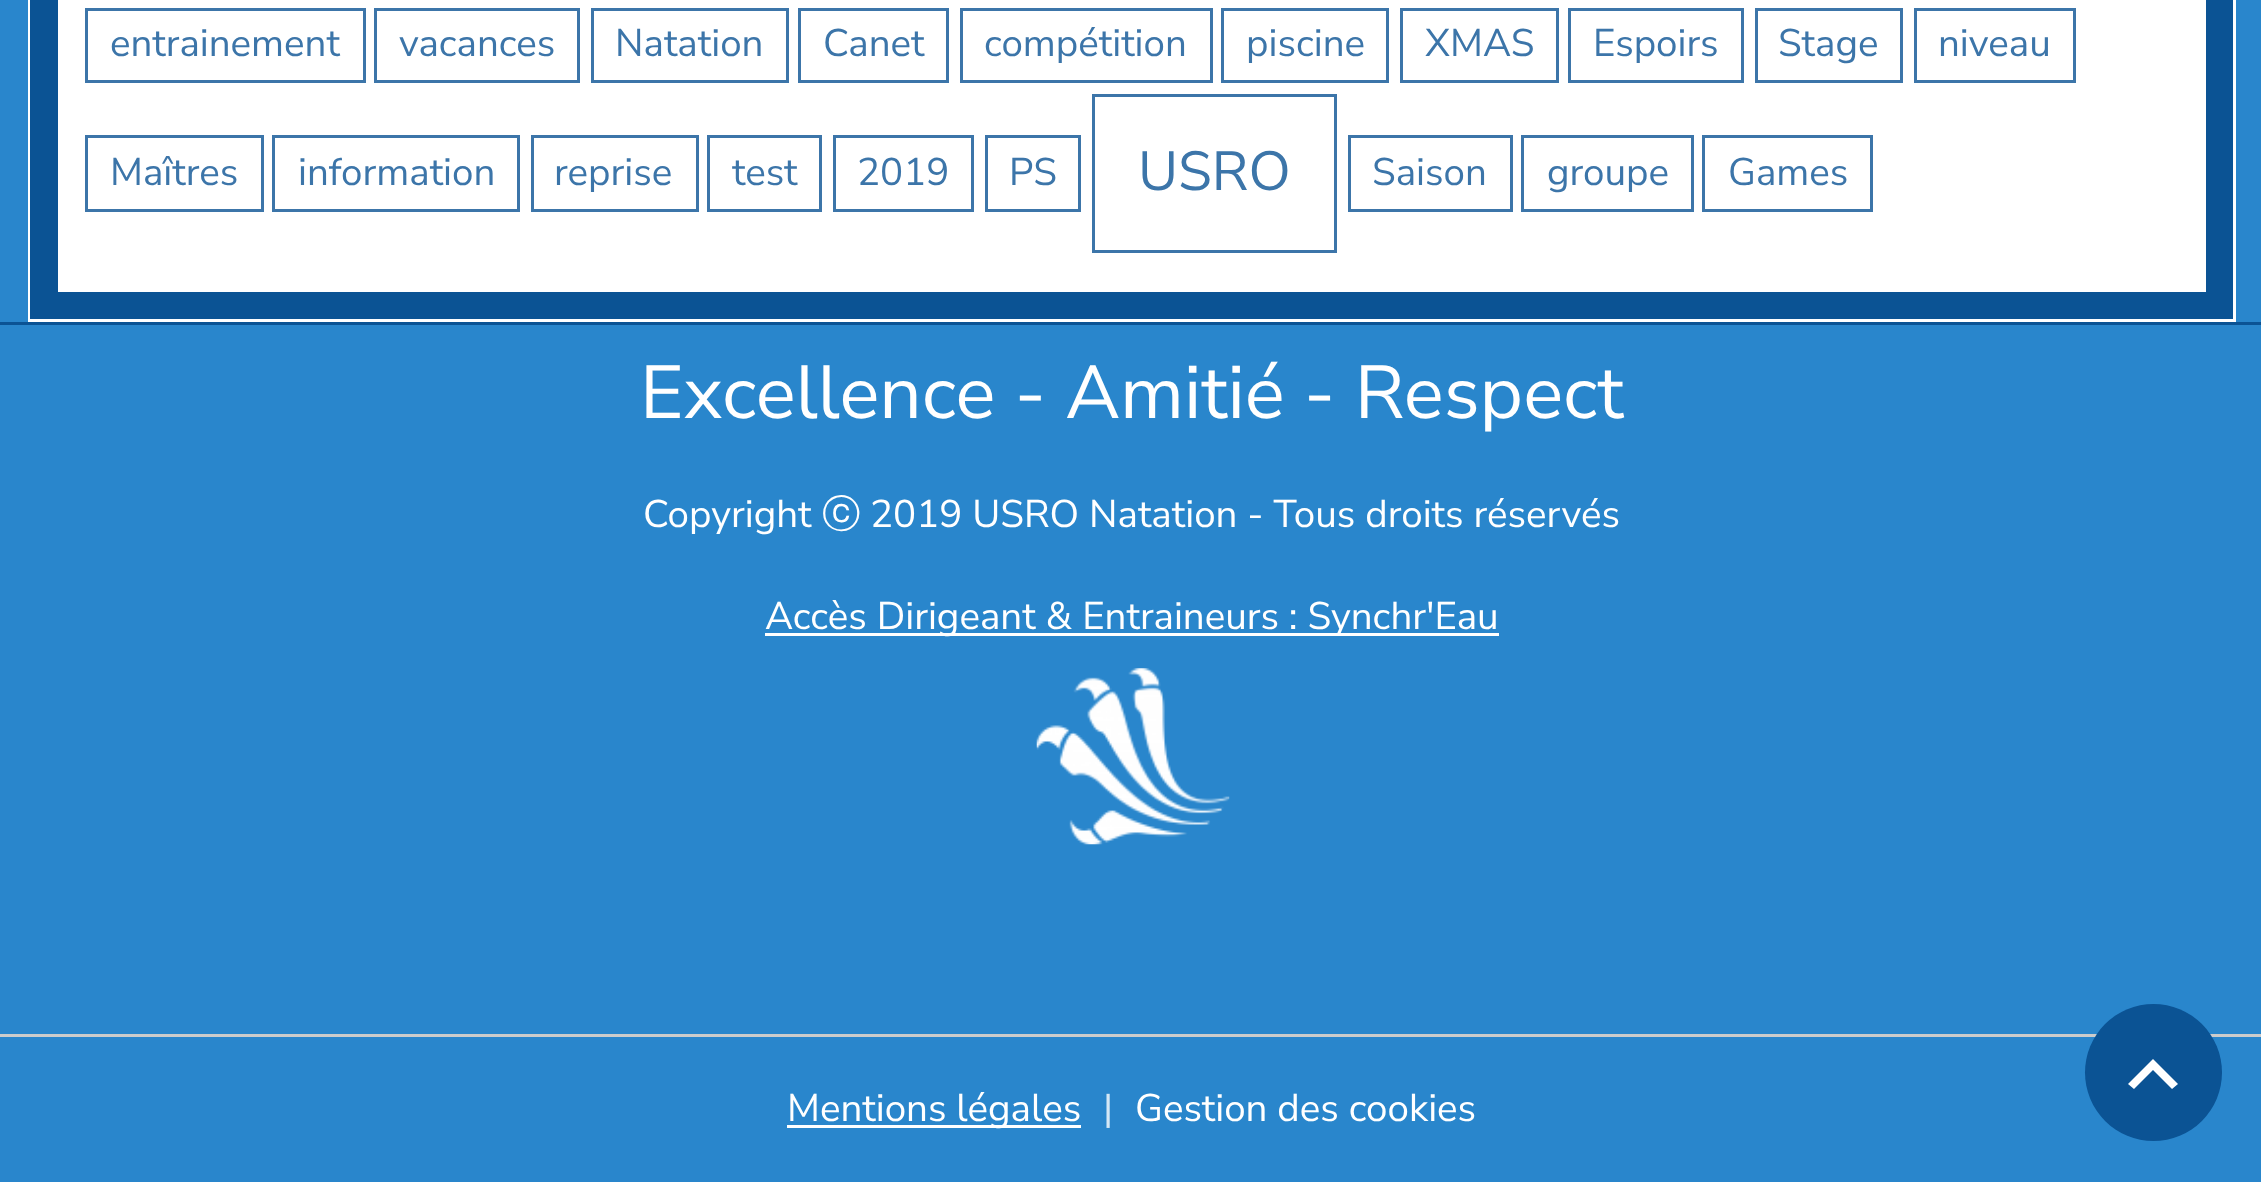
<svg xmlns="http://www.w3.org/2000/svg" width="2261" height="1182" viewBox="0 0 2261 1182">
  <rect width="100%" height="100%" fill="#2986cc"/>
  <path d="M28 0h2208v322H28z" fill="#fff"/>
  <path d="M30 0h2203v319H30z" fill="#0b5394"/>
  <path d="M58 0h2148v292H58z" fill="#fff"/>
  <path d="M86.5 9.5h278v72H86.5z" fill="none" stroke="#3c75a9" stroke-width="3"/>
  <path d="M375.5 9.5h203v72H375.5z" fill="none" stroke="#3c75a9" stroke-width="3"/>
  <path d="M592.5 9.5h195v72H592.5z" fill="none" stroke="#3c75a9" stroke-width="3"/>
  <path d="M799.5 9.5h148v72H799.5z" fill="none" stroke="#3c75a9" stroke-width="3"/>
  <path d="M961.5 9.5h250v72H961.5z" fill="none" stroke="#3c75a9" stroke-width="3"/>
  <path d="M1222.5 9.5h165v72H1222.5z" fill="none" stroke="#3c75a9" stroke-width="3"/>
  <path d="M1401.5 9.5h156v72H1401.5z" fill="none" stroke="#3c75a9" stroke-width="3"/>
  <path d="M1569.5 9.5h173v72H1569.5z" fill="none" stroke="#3c75a9" stroke-width="3"/>
  <path d="M1756.5 9.5h145v72H1756.5z" fill="none" stroke="#3c75a9" stroke-width="3"/>
  <path d="M1915.5 9.5h159v72H1915.5z" fill="none" stroke="#3c75a9" stroke-width="3"/>
  <path d="M86.5 136.5h176v74H86.5z" fill="none" stroke="#3c75a9" stroke-width="3"/>
  <path d="M273.5 136.5h245v74H273.5z" fill="none" stroke="#3c75a9" stroke-width="3"/>
  <path d="M532.5 136.5h165v74H532.5z" fill="none" stroke="#3c75a9" stroke-width="3"/>
  <path d="M708.5 136.5h112v74H708.5z" fill="none" stroke="#3c75a9" stroke-width="3"/>
  <path d="M834.5 136.5h138v74H834.5z" fill="none" stroke="#3c75a9" stroke-width="3"/>
  <path d="M986.5 136.5h93v74H986.5z" fill="none" stroke="#3c75a9" stroke-width="3"/>
  <path d="M1093.5 95.5h242v156H1093.5z" fill="none" stroke="#3c75a9" stroke-width="3"/>
  <path d="M1349.5 136.5h162v74H1349.5z" fill="none" stroke="#3c75a9" stroke-width="3"/>
  <path d="M1522.5 136.5h170v74H1522.5z" fill="none" stroke="#3c75a9" stroke-width="3"/>
  <path d="M1703.5 136.5h168v74H1703.5z" fill="none" stroke="#3c75a9" stroke-width="3"/>
  <path d="M0 322h2261v3H0z" fill="#0b5394"/>
  <path d="M765 633h734v3H765z" fill="#fff"/>
  <image x="1036" y="668" width="194" height="177" href="img/1.png"/>
  <path d="M0 1034h2261v3H0z" fill="#ccc"/>
  <path d="M787 1125h294v3H787z" fill="#fff"/>
  <circle cx="2153.5" cy="1072.5" r="68.5" fill="#0b5394"/>
  <path d="M2153 1059L2178 1084L2172 1089L2153 1070L2134 1089L2128 1084Z" fill="#fff"/>
  <g font-family="Nunito Sans" font-size="38.5" fill="#3c75a9">
    <text x="110" y="56">entrainement</text>
    <text x="399" y="56">vacances</text>
    <text x="615" y="56">Natation</text>
    <text x="823" y="56">Canet</text>
    <text x="984" y="56">compétition</text>
    <text x="1246" y="56">piscine</text>
    <text x="1425" y="56">XMAS</text>
    <text x="1593" y="56">Espoirs</text>
    <text x="1778" y="56">Stage</text>
    <text x="1938" y="56">niveau</text>
    <text x="110" y="185">Maîtres</text>
    <text x="298" y="185">information</text>
    <text x="554" y="185">reprise</text>
    <text x="732" y="185">test</text>
    <text x="857" y="185">2019</text>
    <text x="1009" y="185">PS</text>
  </g>
  <text x="1138" y="190" font-family="Nunito Sans" font-size="55" fill="#3c75a9">USRO</text>
  <g font-family="Nunito Sans" font-size="38.5" fill="#3c75a9">
    <text x="1372" y="185">Saison</text>
    <text x="1547" y="185">groupe</text>
    <text x="1728" y="185">Games</text>
  </g>
  <text x="640" y="418" font-family="Nunito Sans" font-size="74.75" fill="#fff">Excellence - Amitié - Respect</text>
  <text x="643" y="527" font-family="Nunito Sans" font-size="38.5" fill="#fff">Copyright</text>
  <text x="822" y="527" font-family="WenQuanYi Zen Hei" font-size="38.5" font-weight="500" fill="#fff">ⓒ</text>
  <g font-family="Nunito Sans" font-size="38.5" fill="#fff">
    <text x="870" y="527">2019 USRO Natation - Tous droits réservés</text>
    <text x="765" y="629">Accès Dirigeant &amp; Entraineurs : Synchr'Eau</text>
    <text x="787" y="1121">Mentions légales</text>
  </g>
  <text x="1103" y="1121" font-family="Nunito Sans" font-size="38.5" fill="#d4e7f5">|</text>
  <text x="1135" y="1121" font-family="Nunito Sans" font-size="38.5" fill="#fff">Gestion des cookies</text>
</svg>
